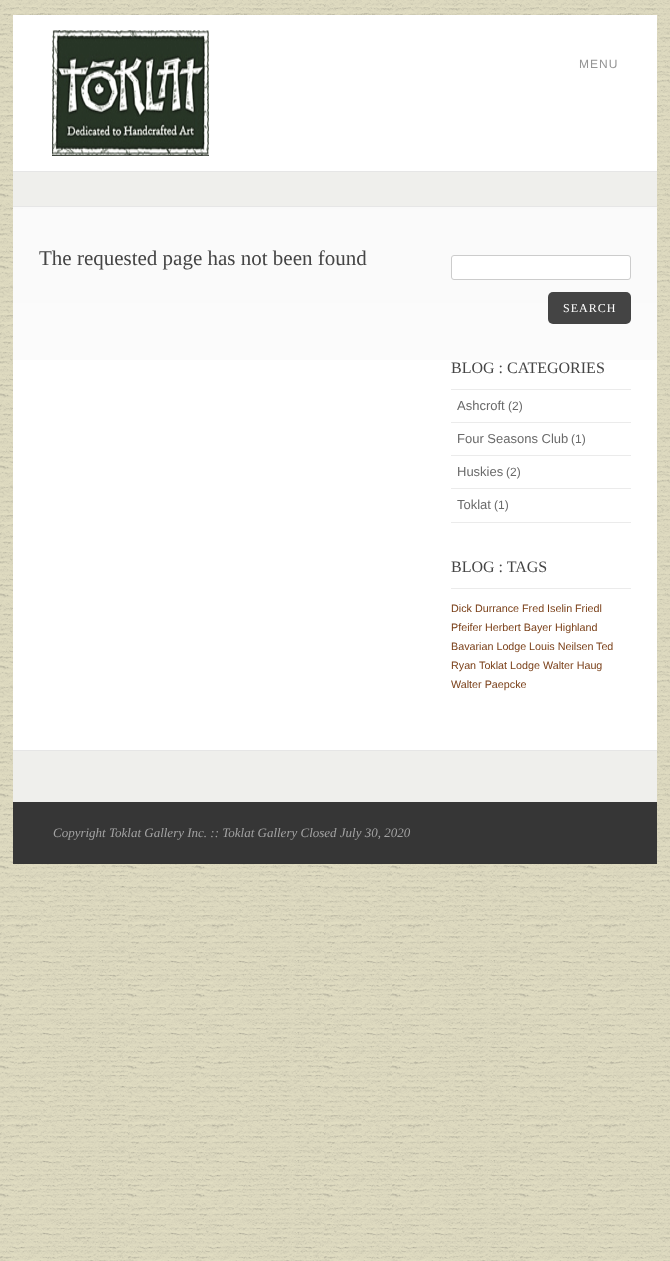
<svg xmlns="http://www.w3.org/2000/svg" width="670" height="1261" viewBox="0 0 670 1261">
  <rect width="100%" height="100%" fill="#e1ddc2"/>
  <image x="0" y="0" width="670" height="1261" href="img/1.png"/>
  <path d="M13 15h644v735H13z" fill="#fff"/>
  <image x="52" y="30" width="157" height="126" href="img/2.png"/>
  <path d="M13 172h644v34H13z" fill="#efefec"/>
  <path d="M13 171h644v1H13z" fill="#e6e6e6"/>
  <path d="M13 206h644v1H13z" fill="#e6e6e6"/>
  <image x="13" y="207" width="644" height="153" href="img/3.png"/>
  <rect x="451.5" y="255.5" width="179" height="24" rx="2.5" fill="#fff" stroke="#ccc"/>
  <rect x="548" y="292" width="83" height="32" rx="5" fill="#444"/>
  <path d="M451 389h180v1H451z" fill="#ebebeb"/>
  <path d="M451 422h180v1H451z" fill="#ebebeb"/>
  <path d="M451 455h180v1H451z" fill="#ebebeb"/>
  <path d="M451 488h180v1H451z" fill="#ebebeb"/>
  <path d="M451 522h180v1H451z" fill="#ebebeb"/>
  <path d="M451 588h180v1H451z" fill="#ebebeb"/>
  <path d="M13 751h644v51H13z" fill="#efefec"/>
  <path d="M13 750h644v1H13z" fill="#e6e6e6"/>
  <path d="M13 802h644v62H13z" fill="#363636"/>
  <text x="579" y="68" font-family="Liberation Sans" font-size="12" letter-spacing="1" fill="#959595">MENU</text>
  <text x="39" y="265" font-family="Liberation Serif" font-size="21" fill="#454545">The requested page has not been found</text>
  <text x="563" y="312" font-family="Liberation Serif" font-size="12" letter-spacing="1" fill="#fff">SEARCH</text>
  <text x="451" y="373" font-family="Liberation Serif" font-size="16" fill="#454545">BLOG : CATEGORIES</text>
  <text x="457" y="410" font-family="Liberation Sans" font-size="13" fill="#6a6a6a">Ashcroft</text>
  <text x="508" y="410" font-family="Liberation Sans" font-size="12" fill="#6a6a6a">(2)</text>
  <text x="457" y="443" font-family="Liberation Sans" font-size="13" fill="#6a6a6a">Four Seasons Club</text>
  <text x="571" y="443" font-family="Liberation Sans" font-size="12" fill="#6a6a6a">(1)</text>
  <text x="457" y="476" font-family="Liberation Sans" font-size="13" fill="#6a6a6a">Huskies</text>
  <text x="506" y="476" font-family="Liberation Sans" font-size="12" fill="#6a6a6a">(2)</text>
  <text x="457" y="509" font-family="Liberation Sans" font-size="13" fill="#6a6a6a">Toklat</text>
  <text x="494" y="509" font-family="Liberation Sans" font-size="12" fill="#6a6a6a">(1)</text>
  <text x="451" y="572" font-family="Liberation Serif" font-size="16" fill="#454545">BLOG : TAGS</text>
  <g font-family="Liberation Sans" font-size="10.75" fill="#7b411a">
    <text x="451" y="612">Dick Durrance</text>
    <text x="522" y="612">Fred Iselin</text>
    <text x="575" y="612">Friedl</text>
    <text x="451" y="631">Pfeifer</text>
    <text x="485" y="631">Herbert Bayer</text>
    <text x="555" y="631">Highland</text>
    <text x="451" y="650">Bavarian Lodge</text>
    <text x="529" y="650">Louis Neilsen</text>
    <text x="596" y="650">Ted</text>
    <text x="451" y="669">Ryan</text>
    <text x="479" y="669">Toklat Lodge</text>
    <text x="543" y="669">Walter Haug</text>
    <text x="451" y="688">Walter Paepcke</text>
  </g>
  <text x="53" y="837" font-family="Liberation Serif" font-size="13" font-style="italic" fill="#a3a3a3">Copyright Toklat Gallery Inc. :: Toklat Gallery Closed July 30, 2020</text>
</svg>
